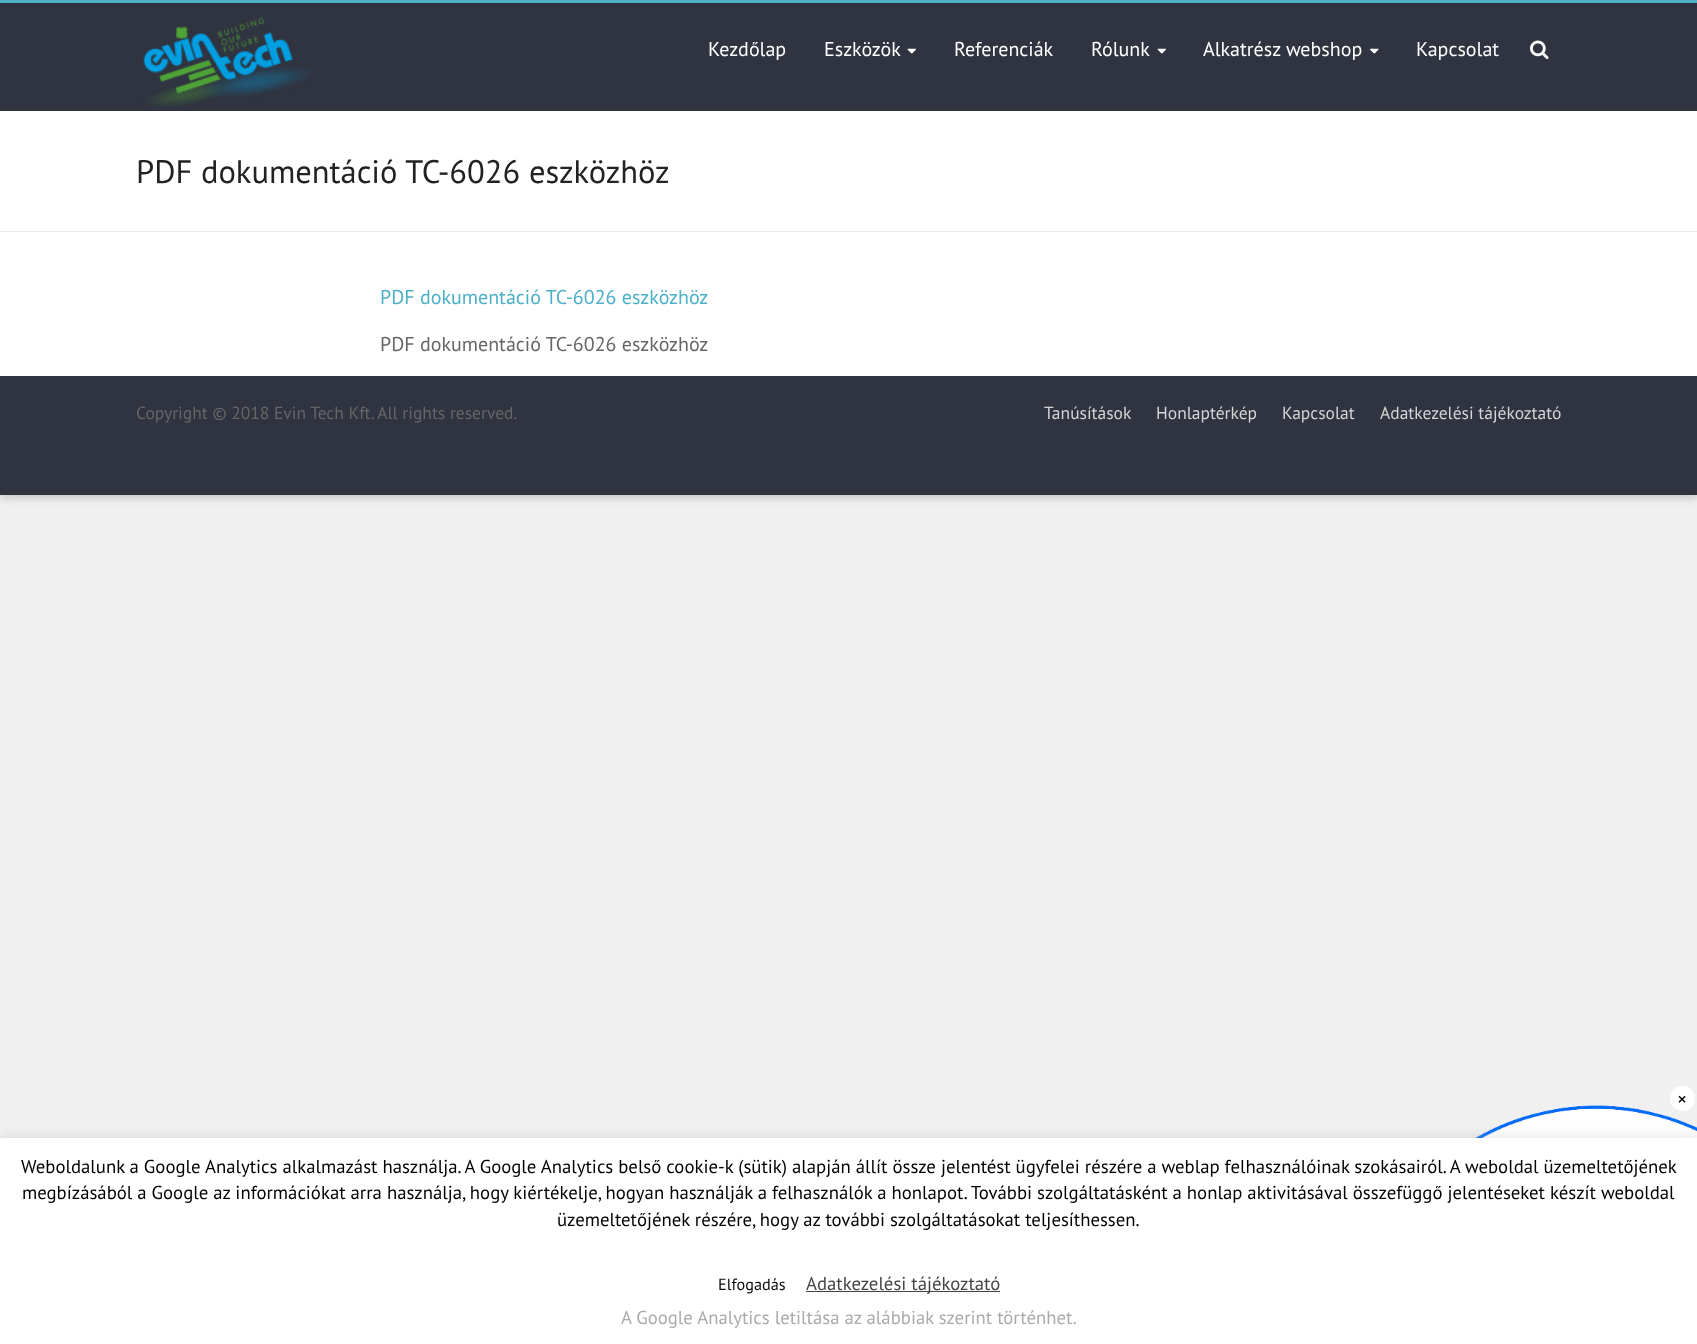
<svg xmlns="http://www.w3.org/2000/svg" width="1697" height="1344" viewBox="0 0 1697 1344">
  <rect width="100%" height="100%" fill="#f0f0f0"/>
  <path d="M0 3h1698v495H0z" fill="#6464644d" filter="blur(4px)"/>
  <path d="M0 111h1697v265H0z" fill="#fff"/>
  <path d="M0 3h1697v108H0z" fill="#303440"/>
  <path d="M0 0h1697v3H0z" fill="#4cb0c6"/>
  <image x="143" y="17" width="170" height="90" href="img/1.png"/>
  <image x="907" y="48" width="9" height="6" href="img/2.png"/>
  <image x="1157" y="48" width="9" height="6" href="img/2.png"/>
  <image x="1370" y="48" width="9" height="6" href="img/3.png"/>
  <image x="1530" y="40" width="19" height="20" href="img/4.png"/>
  <path d="M0 231h1697v1H0z" fill="#eaeaea"/>
  <path d="M0 376h1697v119H0z" fill="#303440"/>
  <image x="1475" y="1105" width="222" height="33" href="img/5.png"/>
  <circle cx="1682.5" cy="1098.5" r="12.5" fill="#fff"/>
  <path d="M0 1136h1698v208H0z" fill="#acabab4d" filter="blur(6px)"/>
  <path d="M0 1138h1697v206H0z" fill="#fff"/>
  <path d="M806 1291h194v1H806z" fill="#444"/>
  <g font-family="PT Sans" font-size="20" fill="#fff">
    <text x="708" y="56">Kezdőlap</text>
    <text x="824" y="56">Eszközök</text>
    <text x="954" y="56">Referenciák</text>
    <text x="1091" y="56">Rólunk</text>
    <text x="1203" y="56">Alkatrész webshop</text>
    <text x="1416" y="56">Kapcsolat</text>
  </g>
  <text x="136" y="183" font-family="PT Sans" font-size="32.5" fill="#222">PDF dokumentáció TC-6026 eszközhöz</text>
  <text x="380" y="304" font-family="PT Sans" font-size="20" fill="#4cb0c6">PDF dokumentáció TC-6026 eszközhöz</text>
  <text x="380" y="351" font-family="PT Sans" font-size="20" fill="#666">PDF dokumentáció TC-6026 eszközhöz</text>
  <text x="136" y="419" font-family="PT Sans" font-size="17.5" fill="#666">Copyright © 2018 Evin Tech Kft. All rights reserved.</text>
  <g font-family="PT Sans" font-size="17.5" fill="#d5d5d5">
    <text x="1044" y="419">Tanúsítások</text>
    <text x="1156" y="419">Honlaptérkép</text>
    <text x="1282" y="419">Kapcsolat</text>
    <text x="1380" y="419">Adatkezelési tájékoztató</text>
  </g>
  <text x="1677" y="1106" font-family="PT Sans" font-size="20" fill="#000">×</text>
  <g font-family="PT Sans" font-size="18.75" fill="#000">
    <text x="21" y="1173">Weboldalunk a Google Analytics alkalmazást használja. A Google Analytics belső cookie-k (sütik) alapján állít össze jelentést ügyfelei részére a weblap felhasználóinak szokásairól. A weboldal üzemeltetőjének</text>
    <text x="22" y="1199">megbízásából a Google az információkat arra használja, hogy kiértékelje, hogyan használják a felhasználók a honlapot. További szolgáltatásként a honlap aktivitásával összefüggő jelentéseket készít weboldal</text>
    <text x="557" y="1226">üzemeltetőjének részére, hogy az további szolgáltatásokat teljesíthessen.</text>
  </g>
  <text x="718" y="1290" font-family="PT Sans" font-size="16.25" fill="#0a0a0a">Elfogadás</text>
  <text x="806" y="1290" font-family="PT Sans" font-size="18.75" fill="#444">Adatkezelési tájékoztató</text>
  <text x="621" y="1324" font-family="PT Sans" font-size="18.75" fill="#aaa">A Google Analytics letiltása az alábbiak szerint történhet.</text>
</svg>
